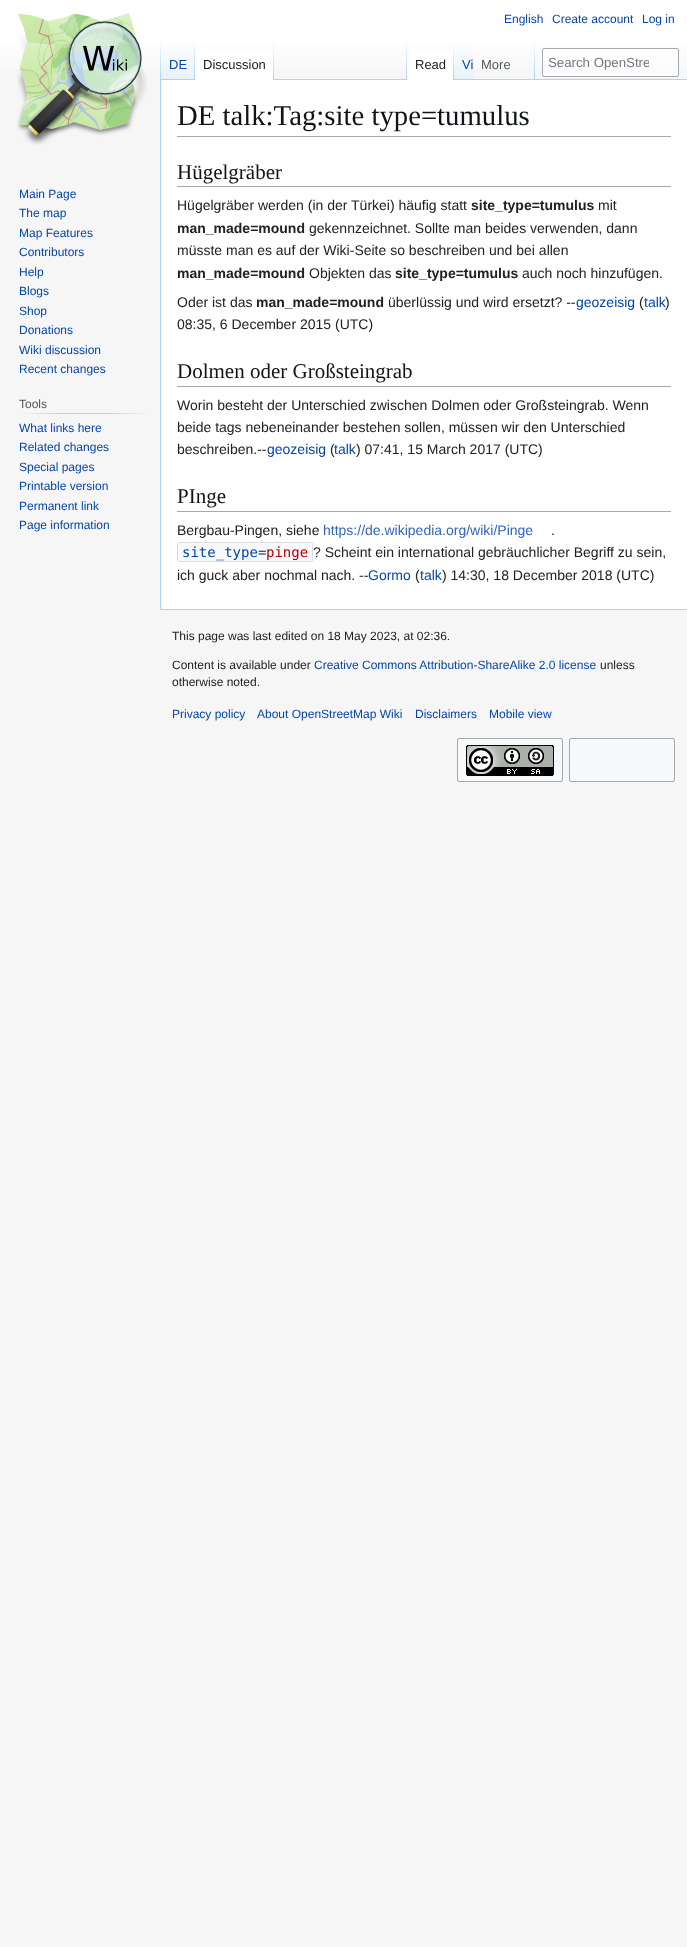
<svg xmlns="http://www.w3.org/2000/svg" width="687" height="1947" viewBox="0 0 687 1947">
  <defs>
    <linearGradient id="g1" gradientUnits="userSpaceOnUse" x1="344" y1="0" x2="344" y2="80"><stop offset="0.5" stop-color="#fff"/><stop offset="1" stop-color="#f6f6f6"/></linearGradient>
    <linearGradient id="g2" gradientUnits="userSpaceOnUse" x1="161" y1="40" x2="161" y2="80"><stop offset="0" stop-color="#a7d7f9" stop-opacity="0"/><stop offset="1" stop-color="#a7d7f9"/></linearGradient>
    <linearGradient id="g3" gradientUnits="userSpaceOnUse" x1="178" y1="80" x2="178" y2="40"><stop offset="0" stop-color="#77c1f6"/><stop offset="0.03" stop-color="#e8f2f8"/><stop offset="1" stop-color="#fff"/></linearGradient>
    <linearGradient id="g4" gradientUnits="userSpaceOnUse" x1="195" y1="40" x2="195" y2="80"><stop offset="0" stop-color="#a7d7f9" stop-opacity="0"/><stop offset="1" stop-color="#a7d7f9"/></linearGradient>
    <linearGradient id="g5" gradientUnits="userSpaceOnUse" x1="274" y1="40" x2="274" y2="80"><stop offset="0" stop-color="#fff"/><stop offset="1" stop-color="#a7d7f9"/></linearGradient>
    <linearGradient id="g6" gradientUnits="userSpaceOnUse" x1="407" y1="40" x2="407" y2="80"><stop offset="0" stop-color="#a7d7f9" stop-opacity="0"/><stop offset="1" stop-color="#a7d7f9"/></linearGradient>
    <linearGradient id="g7" gradientUnits="userSpaceOnUse" x1="454" y1="40" x2="454" y2="80"><stop offset="0" stop-color="#fff"/><stop offset="1" stop-color="#a7d7f9"/></linearGradient>
    <linearGradient id="g8" gradientUnits="userSpaceOnUse" x1="464" y1="80" x2="464" y2="40"><stop offset="0" stop-color="#77c1f6"/><stop offset="0.03" stop-color="#e8f2f8"/><stop offset="1" stop-color="#fff"/></linearGradient>
    <linearGradient id="g9" gradientUnits="userSpaceOnUse" x1="535" y1="40" x2="535" y2="80"><stop offset="0" stop-color="#a7d7f9" stop-opacity="0"/><stop offset="1" stop-color="#a7d7f9"/></linearGradient>
    <linearGradient id="g10" gradientUnits="userSpaceOnUse" x1="19" y1="414" x2="150" y2="414"><stop offset="0" stop-color="#f6f6f6"/><stop offset="0.33" stop-color="#c8ccd1"/><stop offset="0.66" stop-color="#c8ccd1"/><stop offset="1" stop-color="#f6f6f6"/></linearGradient>
    <clipPath id="clip1"><path d="M548 55h101v15H548z"/></clipPath>
  </defs>
  <rect width="100%" height="100%" fill="#f6f6f6"/>
  <path d="M0 0h687v69H0z" fill="url(#g1)"/>
  <path d="M160 609h527v1H160z" fill="#a7d7f9"/>
  <path d="M160 79h1v531H160z" fill="#a7d7f9"/>
  <path d="M160 40h1v40H160z" fill="url(#g2)"/>
  <path d="M161 46h34v34H161z" fill="url(#g3)"/>
  <path d="M194 40h1v40H194z" fill="url(#g4)"/>
  <path d="M195 51h78v29H195z" fill="#fff"/>
  <path d="M273 40h1v40H273z" fill="url(#g5)"/>
  <path d="M274 79h413v1H274z" fill="#a7d7f9"/>
  <path d="M406 40h1v40H406z" fill="url(#g6)"/>
  <path d="M407 51h46v29H407z" fill="#fff"/>
  <path d="M453 40h1v40H453z" fill="url(#g7)"/>
  <path d="M454 46h19v33H454z" fill="url(#g8)"/>
  <path d="M534 40h1v40H534z" fill="url(#g9)"/>
  <rect x="542.5" y="48.5" width="136" height="28" rx="1.5" fill="#ffffff80" stroke="#a2a9b1"/>
  <image x="17" y="13" width="130" height="132" href="img/1.png"/>
  <path d="M19 413h131v1H19z" fill="url(#g10)"/>
  <path d="M161 80h526v529H161z" fill="#fff"/>
  <path d="M177 136h494v1H177z" fill="#a2a9b1"/>
  <path d="M177 186h494v1H177z" fill="#a2a9b1"/>
  <path d="M177 386h494v1H177z" fill="#a2a9b1"/>
  <path d="M177 511h494v1H177z" fill="#a2a9b1"/>
  <path d="M179 542H258V562H179C178 562 177 561 177 560V544C177 543 178 542 179 542Z" fill="#f8f9fa"/>
  <path d="M178 561h80v1H178z" fill="#dadde3"/>
  <path d="M177 543h1v18H177z" fill="#dadde3"/>
  <path d="M258 542h8v20H258z" fill="#f8f9fa"/>
  <path d="M258 561h8v1H258z" fill="#dadde3"/>
  <path d="M178 542h80v1H178z" fill="#dadde3"/>
  <path d="M258 542h8v1H258z" fill="#dadde3"/>
  <path d="M266 542H311C312 542 313 543 313 544V560C313 561 312 562 311 562H266Z" fill="#f8f9fa"/>
  <path d="M266 542h46v1H266z" fill="#dadde3"/>
  <path d="M312 543h1v18H312z" fill="#dadde3"/>
  <path d="M266 561h46v1H266z" fill="#dadde3"/>
  <rect x="457.5" y="738.5" width="105" height="43" rx="1.5" fill="#f8f9fa" stroke="#a2a9b1"/>
  <image x="466" y="745" width="88" height="31" href="img/2.png"/>
  <rect x="569.5" y="738.5" width="105" height="43" rx="1.5" fill="#f8f9fa" stroke="#a2a9b1"/>
  <g font-family="Liberation Sans" font-size="12" fill="#0645ad">
    <text x="504" y="23">English</text>
    <text x="552" y="23">Create account</text>
    <text x="642" y="23">Log in</text>
  </g>
  <text x="169" y="69" font-family="Liberation Sans" font-size="13" fill="#0645ad">DE</text>
  <g font-family="Liberation Sans" font-size="13" fill="#202122">
    <text x="203" y="69">Discussion</text>
    <text x="415" y="69">Read</text>
  </g>
  <text x="462" y="69" font-family="Liberation Sans" font-size="13" fill="#0645ad">Vi</text>
  <text x="481" y="69" font-family="Liberation Sans" font-size="13" fill="#54595d">More</text>
  <g clip-path="url(#clip1)">
    <text x="548" y="67" font-family="Liberation Sans" font-size="13.25" fill="#72777d">Search OpenStre</text>
  </g>
  <g font-family="Liberation Sans" font-size="12" fill="#0645ad">
    <text x="19" y="198">Main Page</text>
    <text x="19" y="217">The map</text>
    <text x="19" y="237">Map Features</text>
    <text x="19" y="256">Contributors</text>
    <text x="19" y="276">Help</text>
    <text x="19" y="295">Blogs</text>
    <text x="19" y="315">Shop</text>
    <text x="19" y="334">Donations</text>
    <text x="19" y="354">Wiki discussion</text>
    <text x="19" y="373">Recent changes</text>
  </g>
  <text x="19" y="408" font-family="Liberation Sans" font-size="12" fill="#54595d">Tools</text>
  <g font-family="Liberation Sans" font-size="12" fill="#0645ad">
    <text x="19" y="432">What links here</text>
    <text x="19" y="451">Related changes</text>
    <text x="19" y="471">Special pages</text>
    <text x="19" y="490">Printable version</text>
    <text x="19" y="510">Permanent link</text>
    <text x="19" y="529">Page information</text>
  </g>
  <text x="177" y="125" font-family="Liberation Serif" font-size="28.75" fill="#101418">DE talk:Tag:site type=tumulus</text>
  <text x="177" y="179" font-family="Liberation Serif" font-size="21" fill="#101418">Hügelgräber</text>
  <text x="177" y="210" font-family="Liberation Sans" font-size="14" fill="#202122">Hügelgräber werden (in der Türkei) häufig statt</text>
  <text x="471" y="210" font-family="Liberation Sans" font-size="14" font-weight="bold" fill="#202122">site_type=tumulus</text>
  <text x="598" y="210" font-family="Liberation Sans" font-size="14" fill="#202122">mit</text>
  <text x="177" y="233" font-family="Liberation Sans" font-size="14" font-weight="bold" fill="#202122">man_made=mound</text>
  <g font-family="Liberation Sans" font-size="14" fill="#202122">
    <text x="309" y="233">gekennzeichnet. Sollte man beides verwenden, dann</text>
    <text x="177" y="255">müsste man es auf der Wiki-Seite so beschreiben und bei allen</text>
  </g>
  <text x="177" y="278" font-family="Liberation Sans" font-size="14" font-weight="bold" fill="#202122">man_made=mound</text>
  <text x="309" y="278" font-family="Liberation Sans" font-size="14" fill="#202122">Objekten das</text>
  <text x="395" y="278" font-family="Liberation Sans" font-size="14" font-weight="bold" fill="#202122">site_type=tumulus</text>
  <g font-family="Liberation Sans" font-size="14" fill="#202122">
    <text x="522" y="278">auch noch hinzufügen.</text>
    <text x="177" y="307">Oder ist das</text>
  </g>
  <text x="256" y="307" font-family="Liberation Sans" font-size="14" font-weight="bold" fill="#202122">man_made=mound</text>
  <text x="388" y="307" font-family="Liberation Sans" font-size="14" fill="#202122">überlüssig und wird ersetzt? --</text>
  <text x="576" y="307" font-family="Liberation Sans" font-size="14" fill="#0645ad">geozeisig</text>
  <text x="639" y="307" font-family="Liberation Sans" font-size="14" fill="#202122">(</text>
  <text x="644" y="307" font-family="Liberation Sans" font-size="14" fill="#0645ad">talk</text>
  <g font-family="Liberation Sans" font-size="14" fill="#202122">
    <text x="665" y="307">)</text>
    <text x="177" y="329">08:35, 6 December 2015 (UTC)</text>
  </g>
  <text x="177" y="378" font-family="Liberation Serif" font-size="21" fill="#101418">Dolmen oder Großsteingrab</text>
  <g font-family="Liberation Sans" font-size="14" fill="#202122">
    <text x="177" y="410">Worin besteht der Unterschied zwischen Dolmen oder Großsteingrab. Wenn</text>
    <text x="177" y="432">beide tags nebeneinander bestehen sollen, müssen wir den Unterschied</text>
    <text x="177" y="454">beschreiben.--</text>
  </g>
  <text x="267" y="454" font-family="Liberation Sans" font-size="14" fill="#0645ad">geozeisig</text>
  <text x="330" y="454" font-family="Liberation Sans" font-size="14" fill="#202122">(</text>
  <text x="334" y="454" font-family="Liberation Sans" font-size="14" fill="#0645ad">talk</text>
  <text x="356" y="454" font-family="Liberation Sans" font-size="14" fill="#202122">) 07:41, 15 March 2017 (UTC)</text>
  <text x="177" y="503" font-family="Liberation Serif" font-size="21" fill="#101418">PInge</text>
  <text x="177" y="535" font-family="Liberation Sans" font-size="14" fill="#202122">Bergbau-Pingen, siehe</text>
  <text x="323" y="535" font-family="Liberation Sans" font-size="14" fill="#36b">https://de.wikipedia.org/wiki/Pinge</text>
  <text x="551" y="535" font-family="Liberation Sans" font-size="14" fill="#202122">.</text>
  <text x="182" y="557" font-family="DejaVu Sans Mono" font-size="14" fill="#0645ad">site_type</text>
  <text x="258" y="557" font-family="DejaVu Sans Mono" font-size="14" fill="#101418">=</text>
  <text x="266" y="557" font-family="DejaVu Sans Mono" font-size="14" fill="#ba0000">pinge</text>
  <g font-family="Liberation Sans" font-size="14" fill="#202122">
    <text x="313" y="557">? Scheint ein international gebräuchlicher Begriff zu sein,</text>
    <text x="177" y="580">ich guck aber nochmal nach. --</text>
  </g>
  <text x="368" y="580" font-family="Liberation Sans" font-size="14" fill="#0645ad">Gormo</text>
  <text x="415" y="580" font-family="Liberation Sans" font-size="14" fill="#202122">(</text>
  <text x="420" y="580" font-family="Liberation Sans" font-size="14" fill="#0645ad">talk</text>
  <text x="442" y="580" font-family="Liberation Sans" font-size="14" fill="#202122">) 14:30, 18 December 2018 (UTC)</text>
  <g font-family="Liberation Sans" font-size="12" fill="#202122">
    <text x="172" y="640">This page was last edited on 18 May 2023, at 02:36.</text>
    <text x="172" y="669">Content is available under</text>
  </g>
  <text x="314" y="669" font-family="Liberation Sans" font-size="12" fill="#0645ad">Creative Commons Attribution-ShareAlike 2.0 license</text>
  <g font-family="Liberation Sans" font-size="12" fill="#202122">
    <text x="600" y="669">unless</text>
    <text x="172" y="686">otherwise noted.</text>
  </g>
  <g font-family="Liberation Sans" font-size="12" fill="#0645ad">
    <text x="172" y="718">Privacy policy</text>
    <text x="257" y="718">About OpenStreetMap Wiki</text>
    <text x="415" y="718">Disclaimers</text>
    <text x="489" y="718">Mobile view</text>
  </g>
</svg>
